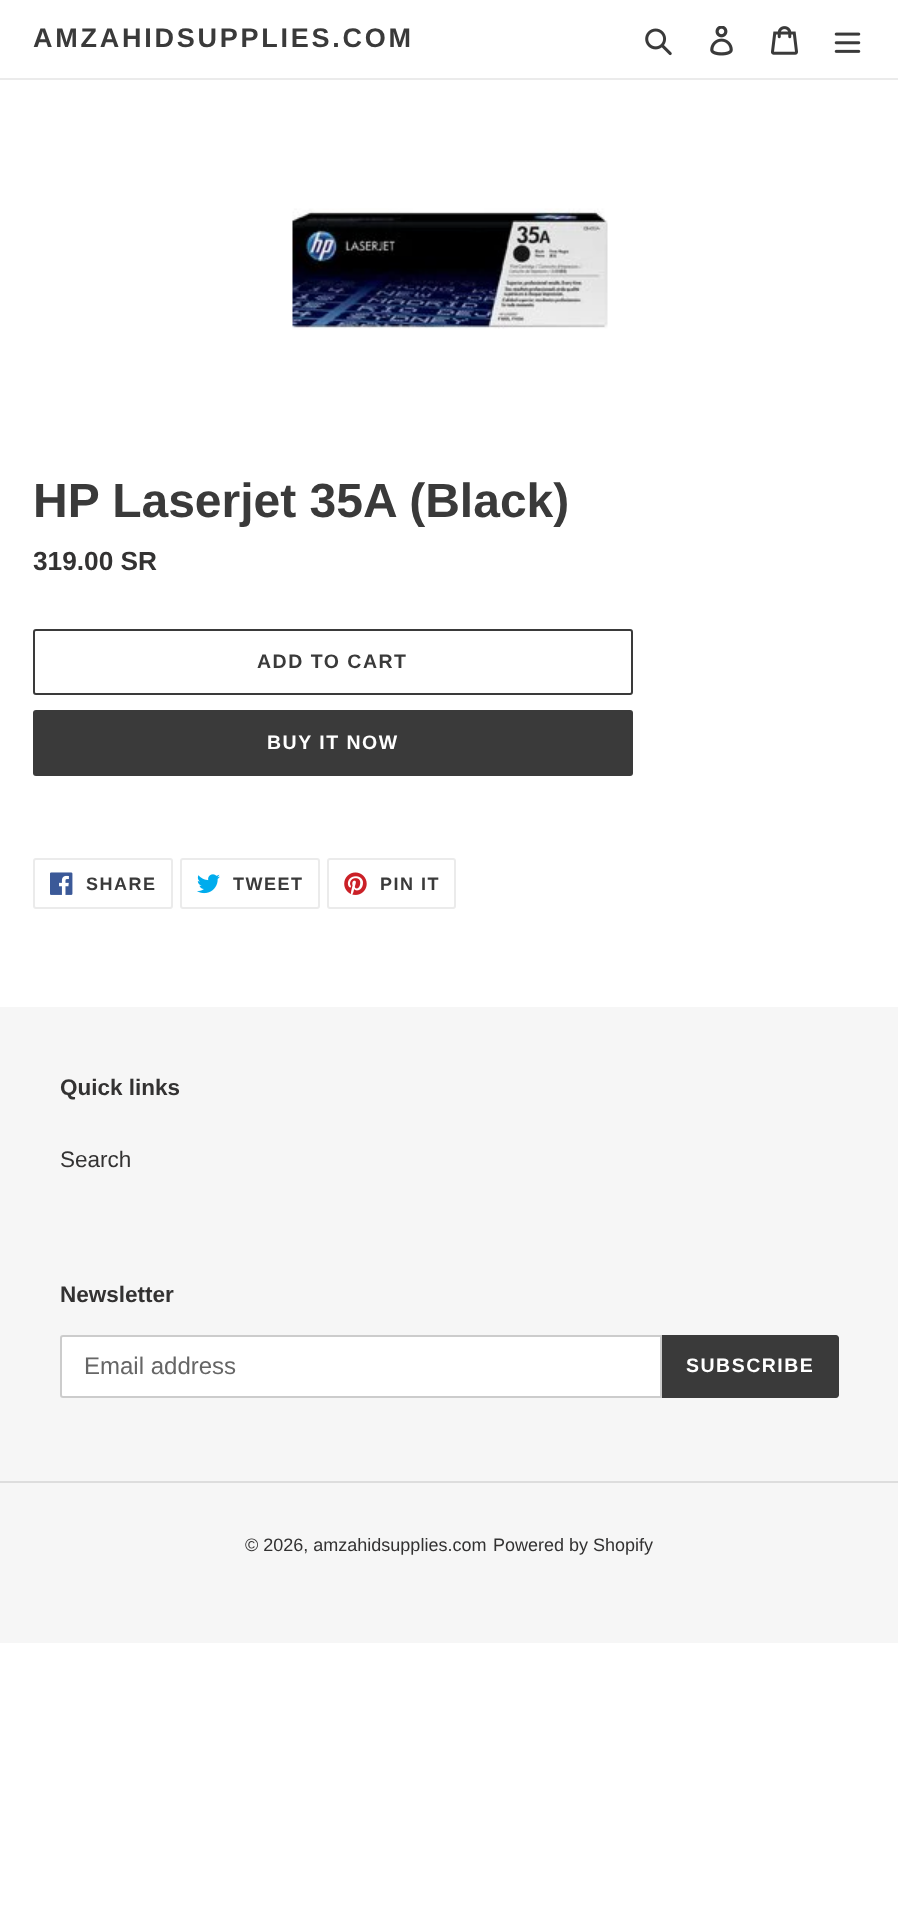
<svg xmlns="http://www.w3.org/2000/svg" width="898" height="1925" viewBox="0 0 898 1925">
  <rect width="100%" height="100%" fill="#fff"/>
  <path d="M0 78h898v2H0z" fill="#ebebeb"/>
  <image x="645" y="28" width="27" height="28" href="img/1.png"/>
  <image x="710" y="26" width="23" height="30" href="img/2.png"/>
  <image x="771" y="26" width="27" height="29" href="img/3.png"/>
  <image x="834" y="32" width="27" height="21" href="img/4.png"/>
  <image x="292" y="208" width="316" height="122" href="img/5.png"/>
  <rect x="34" y="630" width="598" height="64" rx="2" fill="none" stroke="#3a3a3a" stroke-width="2"/>
  <rect x="33" y="710" width="600" height="66" rx="3" fill="#3a3a3a"/>
  <rect x="34" y="859" width="138" height="49" rx="2" fill="none" stroke="#ebebeb" stroke-width="2"/>
  <image x="50" y="872" width="23" height="23" href="img/6.png"/>
  <rect x="181" y="859" width="138" height="49" rx="2" fill="none" stroke="#ebebeb" stroke-width="2"/>
  <image x="197" y="874" width="23" height="20" href="img/7.png"/>
  <rect x="328" y="859" width="127" height="49" rx="2" fill="none" stroke="#ebebeb" stroke-width="2"/>
  <image x="344" y="872" width="23" height="23" href="img/8.png"/>
  <path d="M0 1007h898v636H0z" fill="#f6f6f6"/>
  <path d="M63 1336H661V1397H63C62 1397 61 1396 61 1395V1338C61 1337 62 1336 63 1336Z" fill="#fff" stroke="#ccc" stroke-width="2"/>
  <path d="M662 1335H836C837.5 1335 839 1336.5 839 1338V1395C839 1396.5 837.5 1398 836 1398H662Z" fill="#3a3a3a"/>
  <path d="M0 1481h898v2H0z" fill="#ddd"/>
  <text x="33" y="47" font-family="Liberation Sans" font-size="27" font-weight="bold" letter-spacing="2.75" fill="#3a3a3a">AMZAHIDSUPPLIES.COM</text>
  <text x="33" y="517" font-family="Liberation Sans" font-size="48" font-weight="bold" fill="#3a3a3a">HP Laserjet 35A (Black)</text>
  <text x="33" y="570" font-family="Liberation Sans" font-size="26.25" font-weight="bold" fill="#333232">319.00 SR</text>
  <text x="257" y="668" font-family="Liberation Sans" font-size="19.5" font-weight="bold" letter-spacing="1.5" fill="#3a3a3a">ADD TO CART</text>
  <text x="267" y="749" font-family="Liberation Sans" font-size="19.5" font-weight="bold" letter-spacing="1.5" fill="#fff">BUY IT NOW</text>
  <g font-family="Liberation Sans" font-size="18" font-weight="bold" letter-spacing="1.5" fill="#3a3a3a">
    <text x="86" y="890">SHARE</text>
    <text x="233" y="890">TWEET</text>
    <text x="380" y="890">PIN IT</text>
  </g>
  <text x="60" y="1095" font-family="Liberation Sans" font-size="22.5" font-weight="bold" fill="#333232">Quick links</text>
  <text x="60" y="1167" font-family="Liberation Sans" font-size="22.5" fill="#333232">Search</text>
  <text x="60" y="1302" font-family="Liberation Sans" font-size="22.5" font-weight="bold" fill="#333232">Newsletter</text>
  <text x="84" y="1374" font-family="Liberation Sans" font-size="24" fill="#666">Email address</text>
  <text x="686" y="1372" font-family="Liberation Sans" font-size="19.5" font-weight="bold" letter-spacing="1.5" fill="#fff">SUBSCRIBE</text>
  <g font-family="Liberation Sans" font-size="18" fill="#333232">
    <text x="245" y="1551">© 2026, amzahidsupplies.com</text>
    <text x="493" y="1551">Powered by Shopify</text>
  </g>
</svg>
